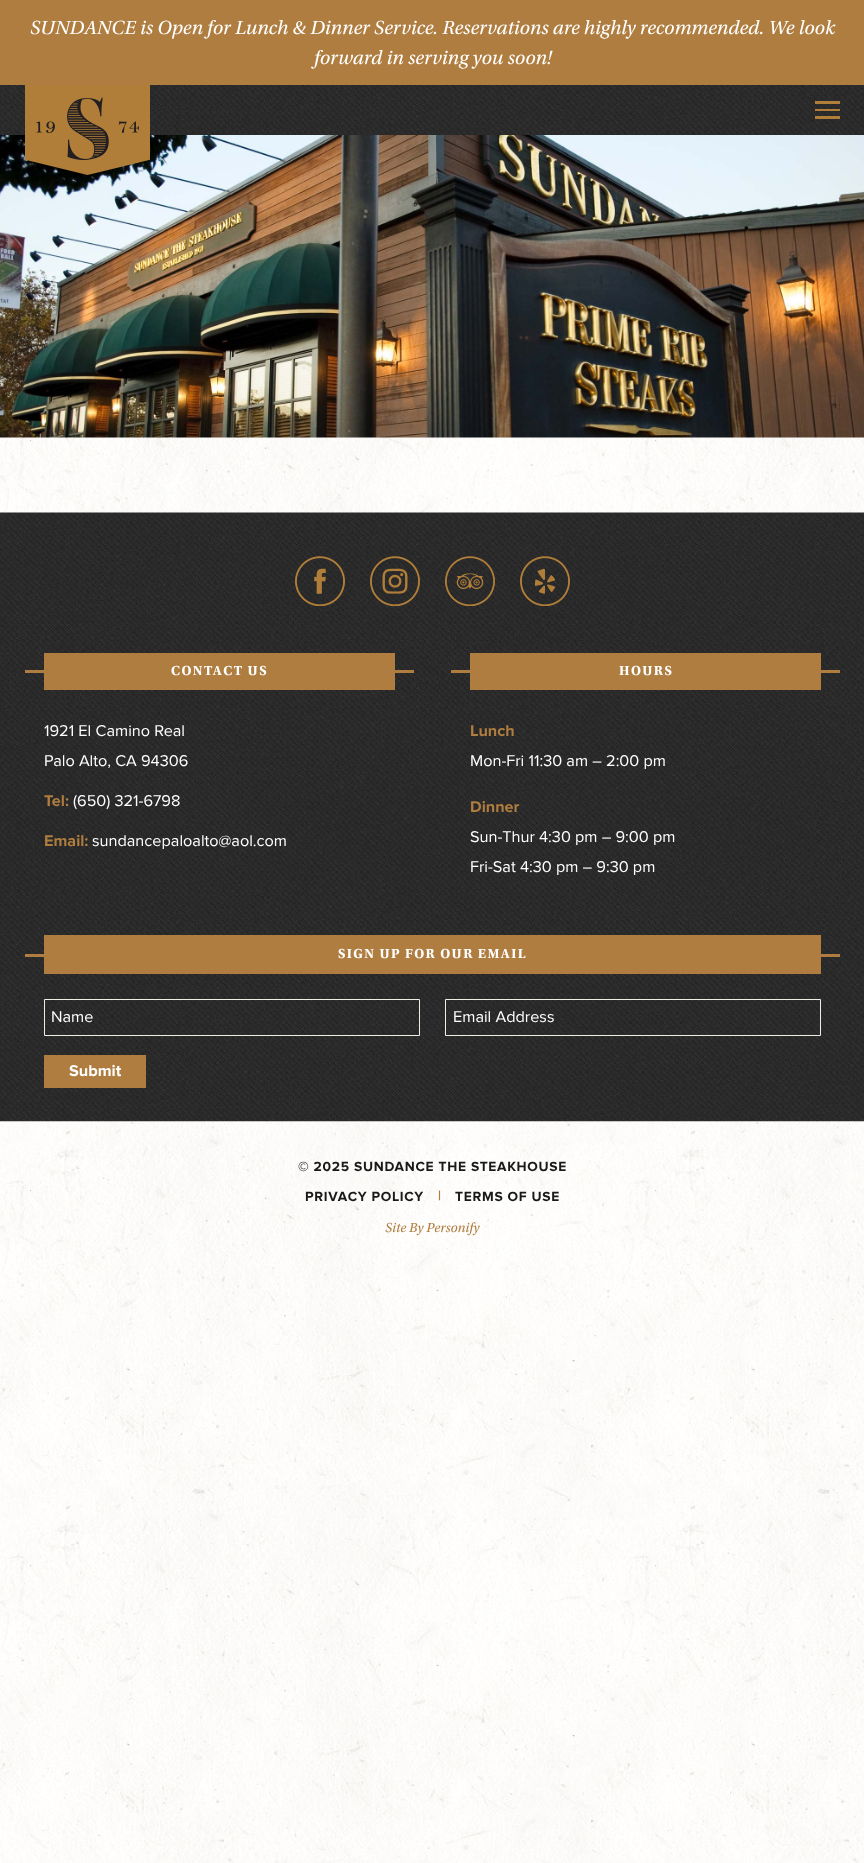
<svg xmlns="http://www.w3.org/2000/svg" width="864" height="1863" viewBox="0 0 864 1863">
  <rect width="100%" height="100%" fill="#fff"/>
  <image x="0" y="437" width="864" height="1426" href="img/1.png"/>
  <path d="M0 0h864v85H0z" fill="#af7d3f"/>
  <image x="0" y="85" width="864" height="50" href="img/2.png"/>
  <image x="0" y="135" width="864" height="303" href="img/4.png"/>
  <image x="25" y="85" width="125" height="90" href="img/3.png"/>
  <path d="M815 101h25v3H815z" fill="#b07e39"/>
  <path d="M815 109h25v2H815z" fill="#b07e39"/>
  <path d="M815 116h25v3H815z" fill="#b07e39"/>
  <image x="0" y="512" width="864" height="610" href="img/5.png"/>
  <image x="295" y="556" width="50" height="50" href="img/6.png"/>
  <image x="370" y="556" width="50" height="50" href="img/7.png"/>
  <image x="445" y="556" width="50" height="50" href="img/8.png"/>
  <image x="520" y="556" width="50" height="50" href="img/9.png"/>
  <path d="M25 670h389v3H25z" fill="#af7d3f"/>
  <path d="M44 653h351v37H44z" fill="#af7d3f"/>
  <path d="M451 670h389v3H451z" fill="#af7d3f"/>
  <path d="M470 653h351v37H470z" fill="#af7d3f"/>
  <path d="M25 954h815v3H25z" fill="#af7d3f"/>
  <path d="M44 935h777v39H44z" fill="#af7d3f"/>
  <path d="M44.5 999.5h375v36H44.5z" fill="none" stroke="#efeee3"/>
  <path d="M445.5 999.5h375v36H445.5z" fill="none" stroke="#efeee3"/>
  <path d="M44 1055h102v33H44z" fill="#af7d3f"/>
  <g font-family="Utopia" font-size="20" font-style="italic" fill="#fff">
    <text x="30" y="34">SUNDANCE is Open for Lunch &amp; Dinner Service. Reservations are highly recommended. We look</text>
    <text x="314" y="64">forward in serving you soon!</text>
  </g>
  <text x="171" y="675" font-family="Utopia" font-size="13.75" font-weight="bold" letter-spacing="1.4" fill="#fff">CONTACT US</text>
  <g font-family="Proxima Nova" font-size="16.25" fill="#fff">
    <text x="44" y="736">1921 El Camino Real</text>
    <text x="44" y="766">Palo Alto, CA 94306</text>
  </g>
  <text x="44" y="806" font-family="Proxima Nova" font-size="16.25" font-weight="bold" fill="#af7d3f">Tel:</text>
  <text x="73" y="806" font-family="Proxima Nova" font-size="16.25" fill="#fff">(650) 321-6798</text>
  <text x="44" y="846" font-family="Proxima Nova" font-size="16.25" font-weight="bold" fill="#af7d3f">Email:</text>
  <text x="92" y="846" font-family="Proxima Nova" font-size="16.25" fill="#fff">sundancepaloalto@aol.com</text>
  <text x="619" y="675" font-family="Utopia" font-size="13.75" font-weight="bold" letter-spacing="1.4" fill="#fff">HOURS</text>
  <text x="470" y="736" font-family="Proxima Nova" font-size="16.25" font-weight="bold" fill="#af7d3f">Lunch</text>
  <text x="470" y="766" font-family="Proxima Nova" font-size="16.25" fill="#fff">Mon-Fri 11:30 am – 2:00 pm</text>
  <text x="470" y="812" font-family="Proxima Nova" font-size="16.25" font-weight="bold" fill="#af7d3f">Dinner</text>
  <g font-family="Proxima Nova" font-size="16.25" fill="#fff">
    <text x="470" y="842">Sun-Thur 4:30 pm – 9:00 pm</text>
    <text x="470" y="872">Fri-Sat 4:30 pm – 9:30 pm</text>
  </g>
  <text x="338" y="958" font-family="Utopia" font-size="13.75" font-weight="bold" letter-spacing="1.4" fill="#fff">SIGN UP FOR OUR EMAIL</text>
  <g font-family="Proxima Nova" font-size="16.25" fill="#fff">
    <text x="51" y="1022">Name</text>
    <text x="453" y="1022">Email Address</text>
  </g>
  <text x="69" y="1076" font-family="Proxima Nova" font-size="16.25" font-weight="bold" fill="#fff">Submit</text>
  <g font-family="Proxima Nova" font-size="13.75" font-weight="bold" letter-spacing="0.7" fill="#191919">
    <text x="298" y="1171">© 2025 SUNDANCE THE STEAKHOUSE</text>
    <text x="305" y="1201">PRIVACY POLICY</text>
  </g>
  <text x="438" y="1200" font-family="Proxima Nova" font-size="13.75" font-weight="bold" letter-spacing="0.7" fill="#af7d3f">|</text>
  <text x="455" y="1201" font-family="Proxima Nova" font-size="13.75" font-weight="bold" letter-spacing="0.7" fill="#191919">TERMS OF USE</text>
  <text x="385" y="1232" font-family="Utopia" font-size="13.75" font-style="italic" fill="#af7d3f">Site By Personify</text>
</svg>
